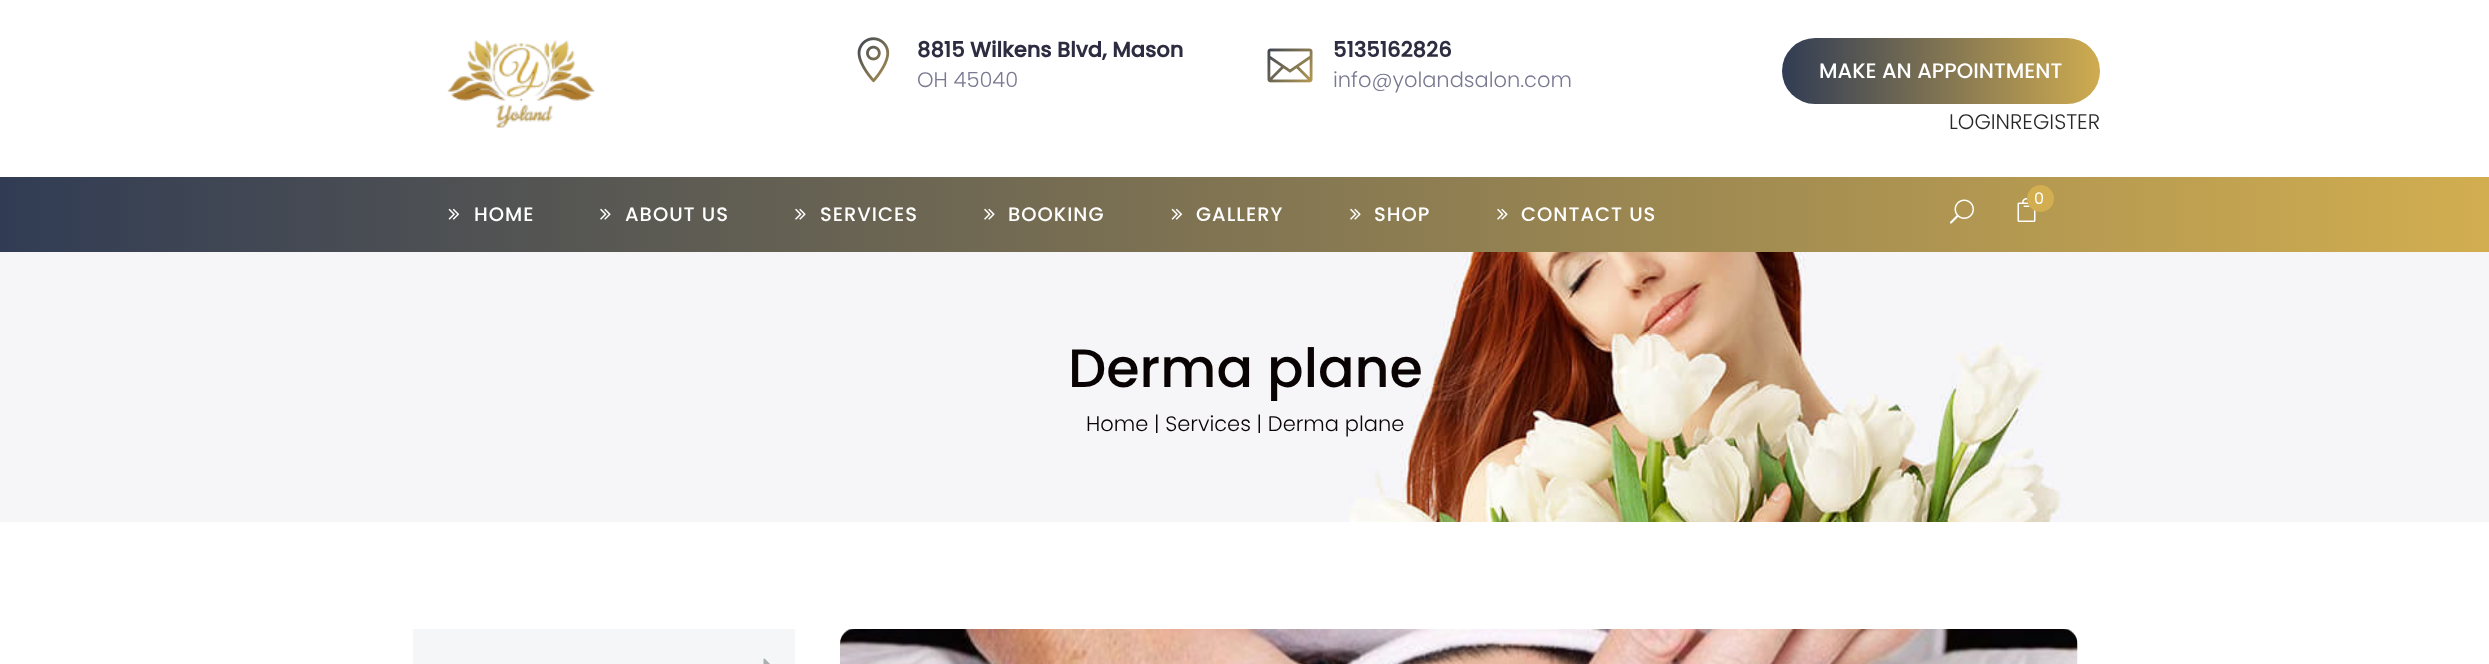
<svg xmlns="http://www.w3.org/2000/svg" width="2489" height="664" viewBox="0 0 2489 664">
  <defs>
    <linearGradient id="g1" gradientUnits="userSpaceOnUse" x1="1782" y1="71" x2="2418" y2="70"><stop offset="0" stop-color="#313c54"/><stop offset="0.51" stop-color="#d2ae50"/><stop offset="1" stop-color="#313c54"/></linearGradient>
    <linearGradient id="g2" gradientUnits="userSpaceOnUse" x1="0" y1="215" x2="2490" y2="214"><stop offset="0" stop-color="#313c54"/><stop offset="1" stop-color="#d2ae50"/></linearGradient>
    <clipPath id="clip1"><path d="M390 338h1710v63H390z"/></clipPath>
  </defs>
  <rect width="100%" height="100%" fill="#fff"/>
  <image x="447" y="40" width="148" height="88" href="img/1.png"/>
  <image x="857" y="37" width="33" height="46" href="img/2.png"/>
  <image x="1267" y="48" width="46" height="35" href="img/3.png"/>
  <rect x="1782" y="38" width="318" height="66" rx="33" fill="url(#g1)"/>
  <path d="M0 177h2489v75H0z" fill="url(#g2)"/>
  <image x="2017" y="198" width="19" height="24" href="img/4.png"/>
  <circle cx="2040.5" cy="198.5" r="13.5" fill="#d2ae50"/>
  <image x="1949" y="199" width="25" height="25" href="img/5.png"/>
  <image x="448" y="208" width="12" height="12" href="img/6.png"/>
  <image x="600" y="208" width="11" height="12" href="img/7.png"/>
  <image x="795" y="208" width="11" height="12" href="img/8.png"/>
  <image x="984" y="208" width="11" height="12" href="img/9.png"/>
  <image x="1171" y="208" width="12" height="12" href="img/10.png"/>
  <image x="1350" y="208" width="11" height="12" href="img/11.png"/>
  <image x="1497" y="208" width="11" height="12" href="img/12.png"/>
  <image x="0" y="252" width="2489" height="270" href="img/13.png"/>
  <path d="M413 629h382v35H413z" fill="#f4f6f8"/>
  <image x="763" y="658" width="7" height="6" href="img/14.png"/>
  <image x="840" y="629" width="1238" height="35" href="img/15.png"/>
  <text x="917" y="57" font-family="Poppins" font-size="21" font-weight="bold" fill="#2d2c40">8815 Wilkens Blvd, Mason</text>
  <text x="917" y="87" font-family="Poppins" font-size="21" font-weight="300" fill="#7a7992">OH 45040</text>
  <text x="1333" y="57" font-family="Poppins" font-size="21" font-weight="bold" fill="#2d2c40">5135162826</text>
  <text x="1333" y="87" font-family="Poppins" font-size="21" font-weight="300" fill="#7a7992">info@yolandsalon.com</text>
  <text x="1819" y="78" font-family="Poppins" font-size="21" font-weight="500" fill="#fff">MAKE AN APPOINTMENT</text>
  <text x="1949" y="129" font-family="Poppins" font-size="21" font-weight="300" fill="#282828">LOGINREGISTER</text>
  <text x="2034" y="204" font-family="Poppins" font-size="16" letter-spacing="1" fill="#fff">0</text>
  <g font-family="Poppins" font-size="19.5" font-weight="500" letter-spacing="1" fill="#fff">
    <text x="474" y="221">HOME</text>
    <text x="625" y="221">ABOUT US</text>
    <text x="820" y="221">SERVICES</text>
    <text x="1008" y="221">BOOKING</text>
    <text x="1196" y="221">GALLERY</text>
    <text x="1374" y="221">SHOP</text>
    <text x="1521" y="221">CONTACT US</text>
  </g>
  <g clip-path="url(#clip1)">
    <text x="1068" y="387" font-family="Poppins" font-size="54" font-weight="500" fill="#0a0304">Derma plane</text>
  </g>
  <text x="1086" y="431" font-family="Poppins" font-size="21" font-weight="300" fill="#0a0304">Home | Services | Derma plane</text>
</svg>
